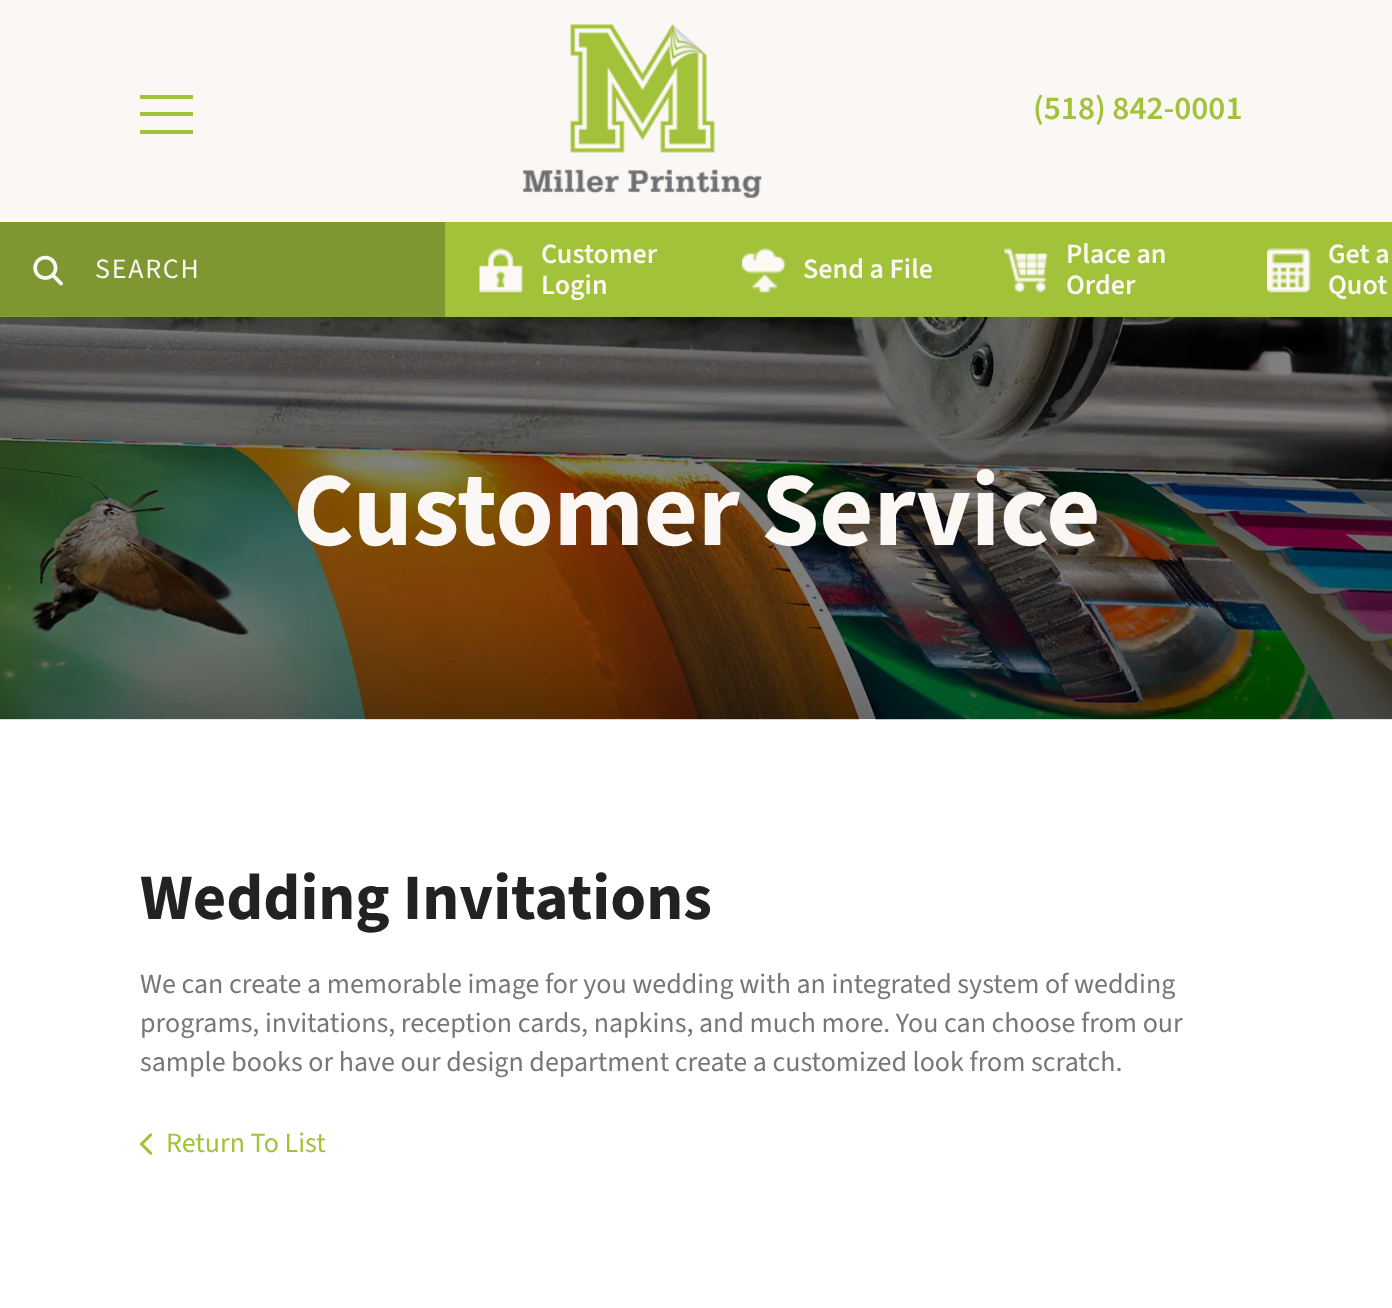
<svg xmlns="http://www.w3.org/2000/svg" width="1392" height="1308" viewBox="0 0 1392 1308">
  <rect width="100%" height="100%" fill="#191818"/>
  <path d="M0 0h1392v222H0z" fill="#faf7f5"/>
  <path d="M140 95h53v4H140z" fill="#a2c23a"/>
  <path d="M140 112h53v4H140z" fill="#a2c23a"/>
  <path d="M140 130h53v4H140z" fill="#a2c23a"/>
  <image x="523" y="24" width="239" height="174" href="img/1.png"/>
  <path d="M0 719h1392v589H0z" fill="#fff"/>
  <image x="0" y="316" width="1392" height="404" href="img/7.png"/>
  <path d="M0 222h95v95H0z" fill="#a2c23abf"/>
  <image x="33" y="255" width="30" height="31" href="img/2.png"/>
  <path d="M95 222h350v95H95z" fill="#a2c23abf"/>
  <path d="M445 222h947v95H445z" fill="#a2c23a"/>
  <image x="479" y="248" width="45" height="45" href="img/3.png"/>
  <image x="742" y="248" width="44" height="45" href="img/4.png"/>
  <image x="1004" y="248" width="45" height="45" href="img/5.png"/>
  <image x="1267" y="248" width="44" height="45" href="img/6.png"/>
  <image x="140" y="1133" width="13" height="22" href="img/8.png"/>
  <text x="1033" y="119" font-family="'Source Sans 3'" font-size="33.25" font-weight="600" fill="#a2c23a">(518) 842-0001</text>
  <text x="95" y="278" font-family="'Source Sans 3'" font-size="28" letter-spacing="1.75" fill="#faf7f5">SEARCH</text>
  <g font-family="'Source Sans 3'" font-size="28" font-weight="600" fill="#faf7f5">
    <text x="541" y="263">Customer</text>
    <text x="541" y="294">Login</text>
    <text x="803" y="278">Send a File</text>
    <text x="1066" y="263">Place an</text>
    <text x="1066" y="294">Order</text>
    <text x="1328" y="263">Get a</text>
    <text x="1328" y="294">Quot</text>
  </g>
  <text x="293" y="545" font-family="'Source Sans 3'" font-size="105" font-weight="bold" fill="#faf7f5">Customer Service</text>
  <text x="140" y="919" font-family="'Source Sans 3'" font-size="64.75" font-weight="bold" fill="#222">Wedding Invitations</text>
  <g font-family="'Source Sans 3'" font-size="28" fill="#787777">
    <text x="140" y="993">We can create a memorable image for you wedding with an integrated system of wedding</text>
    <text x="140" y="1032">programs, invitations, reception cards, napkins, and much more. You can choose from our</text>
    <text x="140" y="1071">sample books or have our design department create a customized look from scratch.</text>
  </g>
  <text x="166" y="1152" font-family="'Source Sans 3'" font-size="28" fill="#a2c23a">Return To List</text>
</svg>
